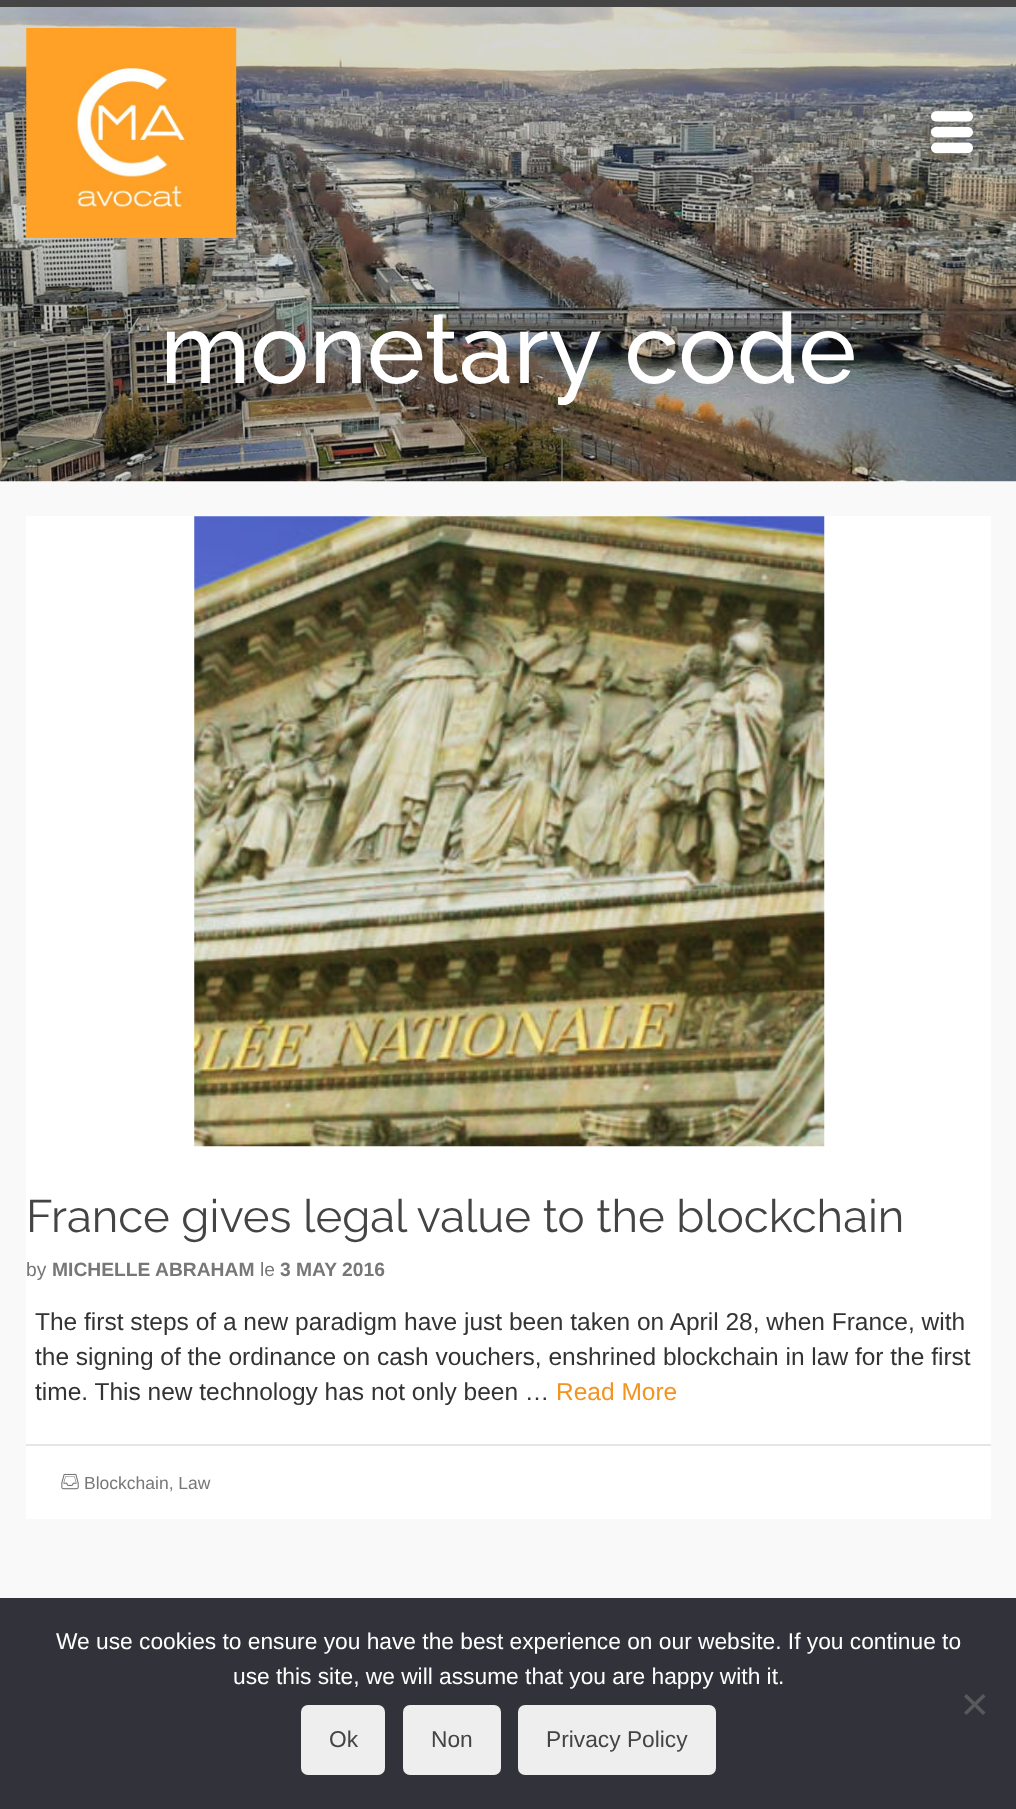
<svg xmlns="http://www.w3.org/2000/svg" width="1016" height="1809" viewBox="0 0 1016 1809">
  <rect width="100%" height="100%" fill="#f9f9f9"/>
  <path d="M0 0h1016v7H0z" fill="#444"/>
  <image x="0" y="7" width="1016" height="475" href="img/3.png"/>
  <image x="26" y="28" width="211" height="210" href="img/1.png"/>
  <image x="931" y="111" width="42" height="43" href="img/2.png"/>
  <path d="M26 516h965v1003H26z" fill="#fff"/>
  <image x="194" y="516" width="631" height="631" href="img/4.png"/>
  <path d="M26 1444h965v2H26z" fill="#e6e6e6"/>
  <image x="61" y="1473" width="18" height="17" href="img/5.png"/>
  <path d="M0 1598h1016v211H0z" fill="#32323a"/>
  <path d="M983 1694L985.5 1696.5L966.5 1715L964 1712.5Z" fill="#59595d"/>
  <path d="M964 1696.5L966.5 1694L985.5 1712.5L983 1715Z" fill="#59595d"/>
  <rect x="301" y="1705" width="84" height="70" rx="7" fill="#eee"/>
  <rect x="403" y="1705" width="98" height="70" rx="7" fill="#eee"/>
  <rect x="518" y="1705" width="198" height="70" rx="7" fill="#eee"/>
  <text x="160" y="383" font-family="Raleway" font-size="98" font-weight="500" fill="#fff">monetary code</text>
  <text x="26" y="1232" font-family="Raleway" font-size="45.5" fill="#444">France gives legal value to the blockchain</text>
  <text x="26" y="1276" font-family="Liberation Sans" font-size="19.25" fill="#777">by</text>
  <text x="52" y="1276" font-family="Liberation Sans" font-size="19.25" font-weight="bold" fill="#777">MICHELLE ABRAHAM</text>
  <text x="260" y="1276" font-family="Liberation Sans" font-size="19.25" fill="#777">le</text>
  <text x="280" y="1276" font-family="Liberation Sans" font-size="19.25" font-weight="bold" fill="#777">3 MAY 2016</text>
  <g font-family="Liberation Sans" font-size="24.5" fill="#333">
    <text x="35" y="1330">The first steps of a new paradigm have just been taken on April 28, when France, with</text>
    <text x="35" y="1365">the signing of the ordinance on cash vouchers, enshrined blockchain in law for the first</text>
    <text x="35" y="1400">time. This new technology has not only been …</text>
  </g>
  <text x="556" y="1400" font-family="Liberation Sans" font-size="24.5" fill="#f39320">Read More</text>
  <text x="84" y="1489" font-family="Liberation Sans" font-size="17.5" fill="#777">Blockchain, Law</text>
  <g font-family="Liberation Sans" font-size="22.75" fill="#fff">
    <text x="56" y="1649">We use cookies to ensure you have the best experience on our website. If you continue to</text>
    <text x="233" y="1684">use this site, we will assume that you are happy with it.</text>
  </g>
  <g font-family="Liberation Sans" font-size="22.75" fill="#444">
    <text x="329" y="1747">Ok</text>
    <text x="431" y="1747">Non</text>
    <text x="546" y="1747">Privacy Policy</text>
  </g>
</svg>
